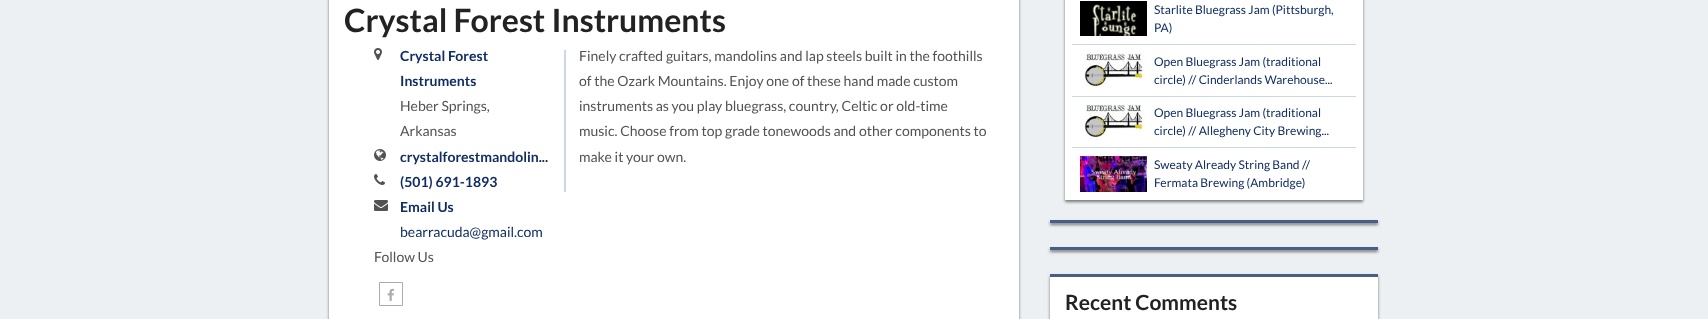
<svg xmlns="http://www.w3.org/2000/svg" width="1708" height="319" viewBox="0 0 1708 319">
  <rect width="100%" height="100%" fill="#ecf0f3"/>
  <path d="M329 -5h690v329H329z" fill="#00000080" filter="blur(1.5px)"/>
  <path d="M329 0h690v319H329z" fill="#fff"/>
  <image x="374" y="48" width="8" height="12" href="img/1.png"/>
  <image x="374" y="149" width="12" height="12" href="img/2.png"/>
  <image x="374" y="174" width="11" height="11" href="img/3.png"/>
  <image x="374" y="200" width="14" height="11" href="img/4.png"/>
  <path d="M379.5 282.5h23v23H379.5z" fill="none" stroke="#ababab"/>
  <image x="387" y="288" width="7" height="13" href="img/5.png"/>
  <path d="M564 50h2v142H564z" fill="#cdd7df"/>
  <path d="M1065 -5h298v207H1065z" fill="#00000080" filter="blur(1.5px)"/>
  <path d="M1065 0h298v200H1065z" fill="#fff"/>
  <path d="M1072 44h284v1H1072z" fill="#cdd7df"/>
  <image x="1080" y="1" width="67" height="35" href="img/6.png"/>
  <path d="M1072 96h284v1H1072z" fill="#cdd7df"/>
  <image x="1080" y="53" width="67" height="35" href="img/7.png"/>
  <path d="M1072 147h284v1H1072z" fill="#cdd7df"/>
  <image x="1080" y="104" width="67" height="35" href="img/7.png"/>
  <image x="1080" y="156" width="67" height="36" href="img/8.png"/>
  <path d="M1050 222h328v3H1050z" fill="#00000080" filter="blur(1.5px)"/>
  <path d="M1050 220h328v3H1050z" fill="#485e86"/>
  <path d="M1050 249h328v3H1050z" fill="#00000080" filter="blur(1.5px)"/>
  <path d="M1050 247h328v3H1050z" fill="#485e86"/>
  <path d="M1050 276h328v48H1050z" fill="#00000080" filter="blur(1.5px)"/>
  <path d="M1050 277h328v42H1050z" fill="#fff"/>
  <path d="M1050 274h328v3H1050z" fill="#485e86"/>
  <text x="344" y="32" font-family="Lato" font-size="32" font-weight="bold" fill="#222">Crystal Forest Instruments</text>
  <g font-family="Lato" font-size="14" font-weight="bold" fill="#102e65">
    <text x="400" y="61">Crystal Forest</text>
    <text x="400" y="86">Instruments</text>
  </g>
  <g font-family="Lato" font-size="14" fill="#535252">
    <text x="400" y="111">Heber Springs,</text>
    <text x="400" y="136">Arkansas</text>
  </g>
  <g font-family="Lato" font-size="14" font-weight="bold" fill="#102e65">
    <text x="400" y="162">crystalforestmandolin...</text>
    <text x="400" y="187">(501) 691-1893</text>
    <text x="400" y="212">Email Us</text>
  </g>
  <text x="400" y="237" font-family="Lato" font-size="14" fill="#102e65">bearracuda@gmail.com</text>
  <g font-family="Lato" font-size="14" fill="#535252">
    <text x="374" y="262">Follow Us</text>
    <text x="579" y="61">Finely crafted guitars, mandolins and lap steels built in the foothills</text>
    <text x="579" y="86">of the Ozark Mountains. Enjoy one of these hand made custom</text>
    <text x="579" y="111">instruments as you play bluegrass, country, Celtic or old-time</text>
    <text x="579" y="136">music. Choose from top grade tonewoods and other components to</text>
    <text x="579" y="162">make it your own.</text>
  </g>
  <g font-family="Lato" font-size="12" fill="#102e65">
    <text x="1154" y="14">Starlite Bluegrass Jam (Pittsburgh,</text>
    <text x="1154" y="32">PA)</text>
    <text x="1154" y="66">Open Bluegrass Jam (traditional</text>
    <text x="1154" y="84">circle) // Cinderlands Warehouse...</text>
    <text x="1154" y="117">Open Bluegrass Jam (traditional</text>
    <text x="1154" y="135">circle) // Allegheny City Brewing...</text>
    <text x="1154" y="169">Sweaty Already String Band //</text>
    <text x="1154" y="187">Fermata Brewing (Ambridge)</text>
  </g>
  <text x="1065" y="310" font-family="Lato" font-size="21" font-weight="bold" fill="#222">Recent Comments</text>
</svg>
